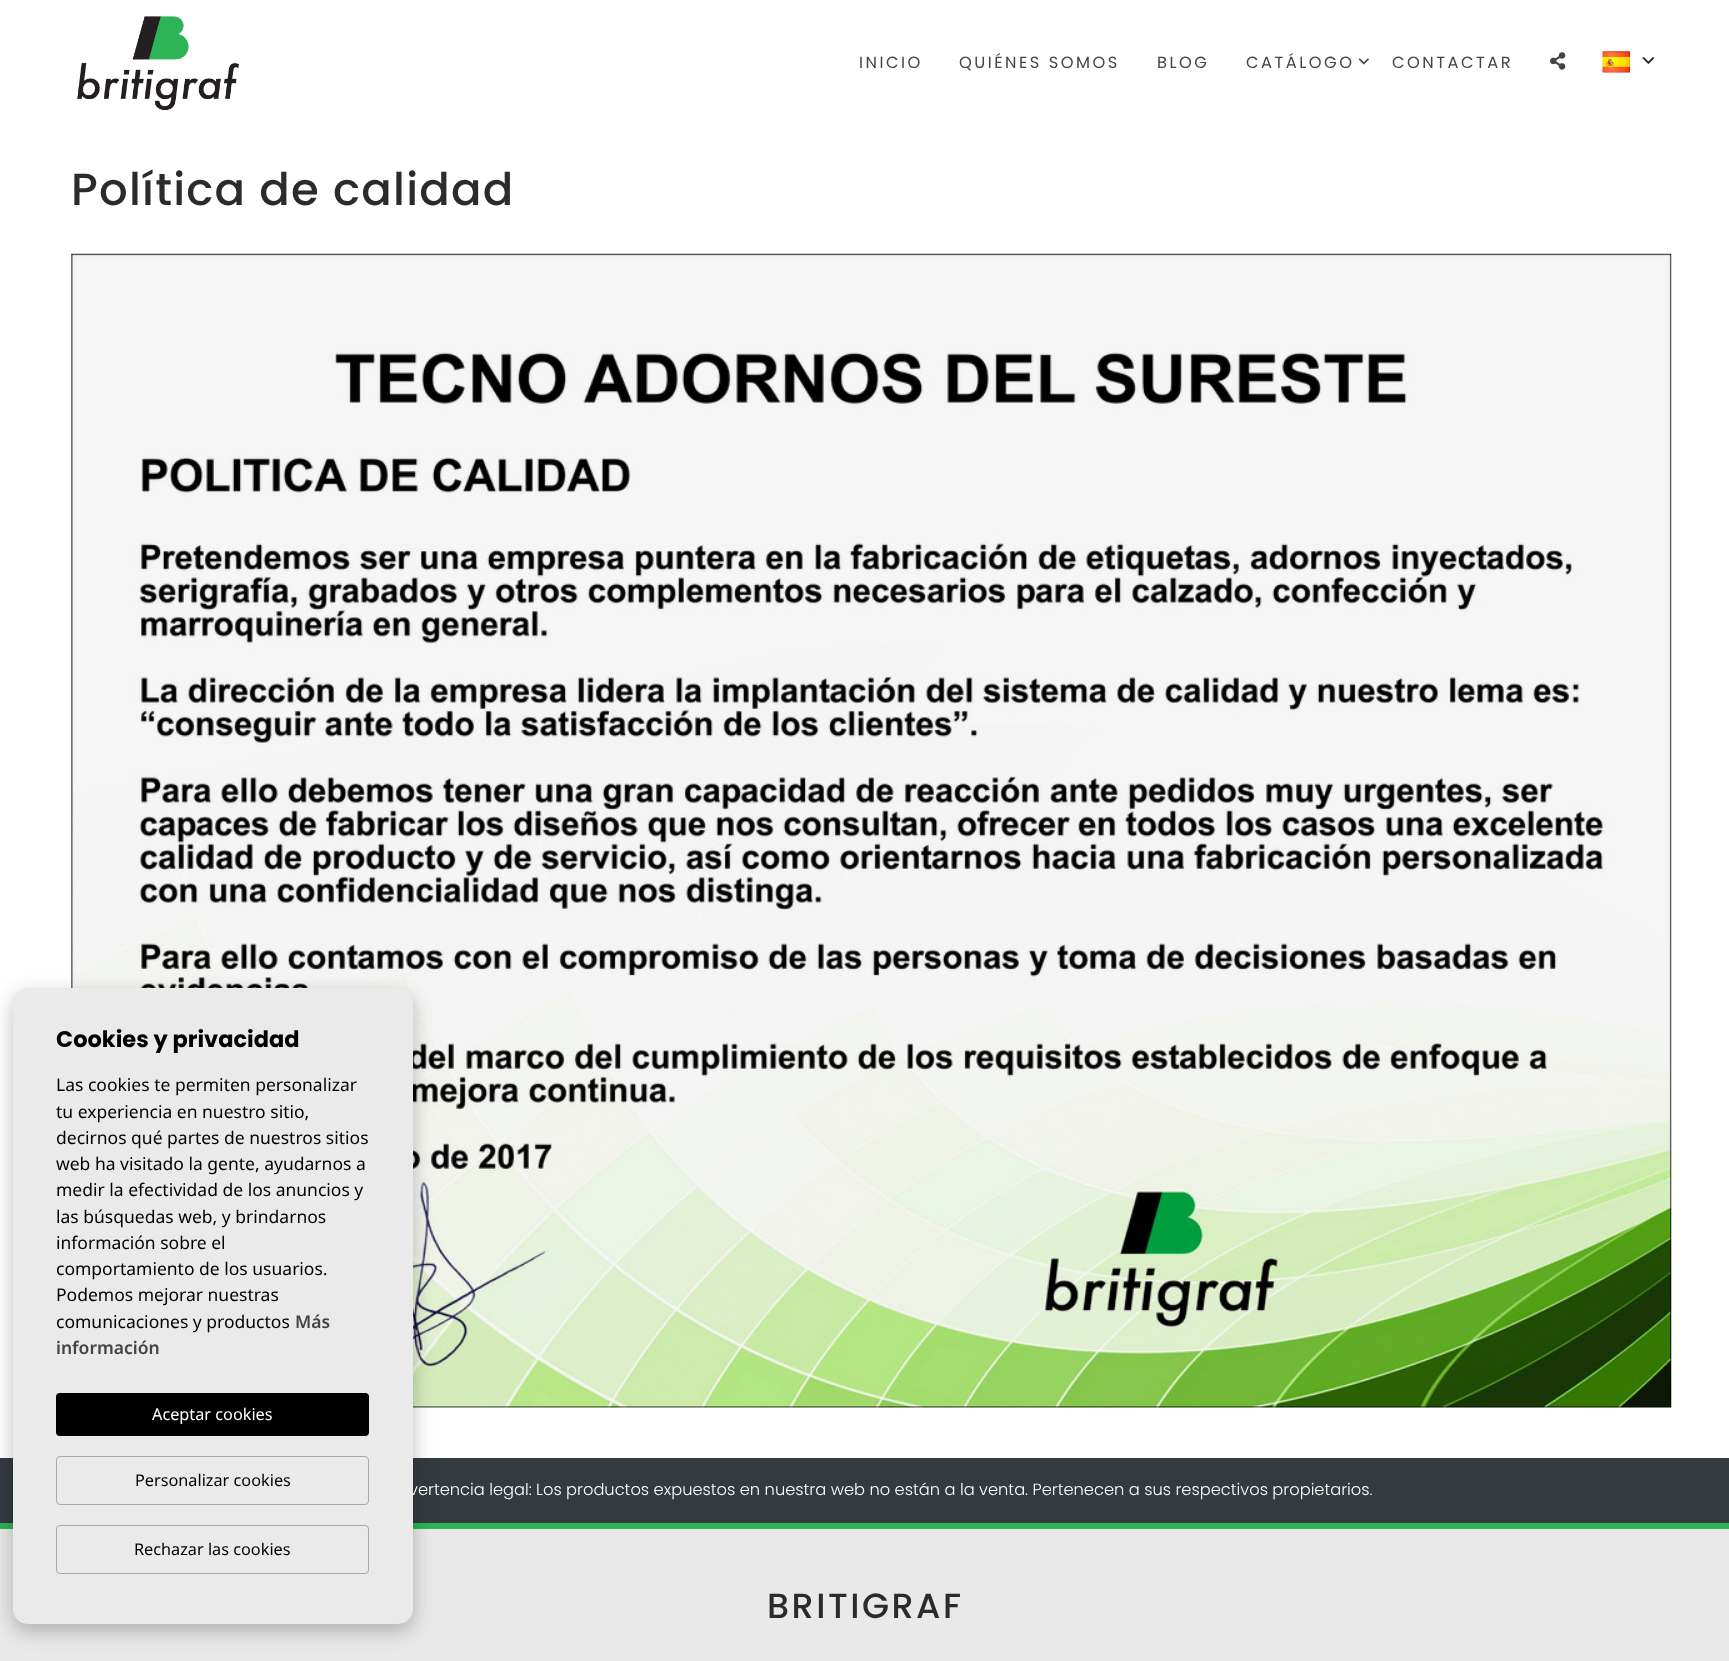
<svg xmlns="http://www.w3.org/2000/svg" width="1729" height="1661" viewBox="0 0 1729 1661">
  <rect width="100%" height="100%" fill="#fff"/>
  <image x="77" y="16" width="162" height="95" href="img/1.png"/>
  <image x="1358" y="58" width="11" height="7" href="img/2.png"/>
  <image x="1550" y="52" width="16" height="18" href="img/3.png"/>
  <image x="1602" y="51" width="28" height="22" href="img/4.png"/>
  <image x="1642" y="57" width="13" height="7" href="img/5.png"/>
  <image x="71" y="253" width="1601" height="1155" href="img/6.png"/>
  <path d="M0 1458h1729v65H0z" fill="#343a40"/>
  <path d="M0 1529h1729v132H0z" fill="#e9e9e9"/>
  <path d="M0 1523h1729v6H0z" fill="#2cb457"/>
  <rect x="13" y="995" width="400" height="636" rx="15" fill="#00000040" filter="blur(10px)"/>
  <g font-family="Poppins" font-size="16.25" letter-spacing="2.5" fill="#444">
    <text x="859" y="68">INICIO</text>
    <text x="959" y="68">QUIÉNES SOMOS</text>
    <text x="1157" y="68">BLOG</text>
    <text x="1246" y="68">CATÁLOGO</text>
    <text x="1392" y="68">CONTACTAR</text>
  </g>
  <text x="71" y="205" font-family="Poppins" font-size="45" font-weight="500" letter-spacing="1.25" fill="#292b2c">Política de calidad</text>
  <text x="409" y="1495" font-family="Poppins" font-size="16.25" font-weight="300" fill="#fff">vertencia legal: Los productos expuestos en nuestra web no están a la venta. Pertenecen a sus respectivos propietarios.</text>
  <rect x="13" y="988" width="400" height="636" rx="15" fill="#eaeaea"/>
  <rect x="56.5" y="1525.5" width="312" height="48" rx="3.5" fill="none" stroke="#a8a8a8"/>
  <text x="134" y="1555" font-family="Noto Sans" font-size="16.25" fill="#000">Rechazar las cookies</text>
  <rect x="56.5" y="1456.5" width="312" height="48" rx="3.5" fill="none" stroke="#a8a8a8"/>
  <text x="135" y="1486" font-family="Noto Sans" font-size="16.25" fill="#000">Personalizar cookies</text>
  <rect x="56" y="1393" width="313" height="43" rx="4" fill="#000"/>
  <text x="152" y="1420" font-family="Noto Sans" font-size="16.25" fill="#fff">Aceptar cookies</text>
  <g font-family="Noto Sans" font-size="17.5" font-weight="600" fill="#444">
    <text x="56" y="1354">información</text>
    <text x="295" y="1328">Más</text>
  </g>
  <g font-family="Noto Sans" font-size="17.5" fill="#000">
    <text x="56" y="1328">comunicaciones y productos</text>
    <text x="56" y="1301">Podemos mejorar nuestras</text>
    <text x="56" y="1275">comportamiento de los usuarios.</text>
    <text x="56" y="1249">información sobre el</text>
    <text x="56" y="1223">las búsquedas web, y brindarnos</text>
    <text x="56" y="1196">medir la efectividad de los anuncios y</text>
    <text x="56" y="1170">web ha visitado la gente, ayudarnos a</text>
    <text x="56" y="1144">decirnos qué partes de nuestros sitios</text>
    <text x="56" y="1118">tu experiencia en nuestro sitio,</text>
    <text x="56" y="1091">Las cookies te permiten personalizar</text>
  </g>
  <text x="56" y="1047" font-family="Poppins" font-size="22.5" font-weight="bold" fill="#000">Cookies y privacidad</text>
  <text x="767" y="1618" font-family="Poppins" font-size="35" font-weight="500" letter-spacing="2.5" fill="#292b2c">BRITIGRAF</text>
</svg>
